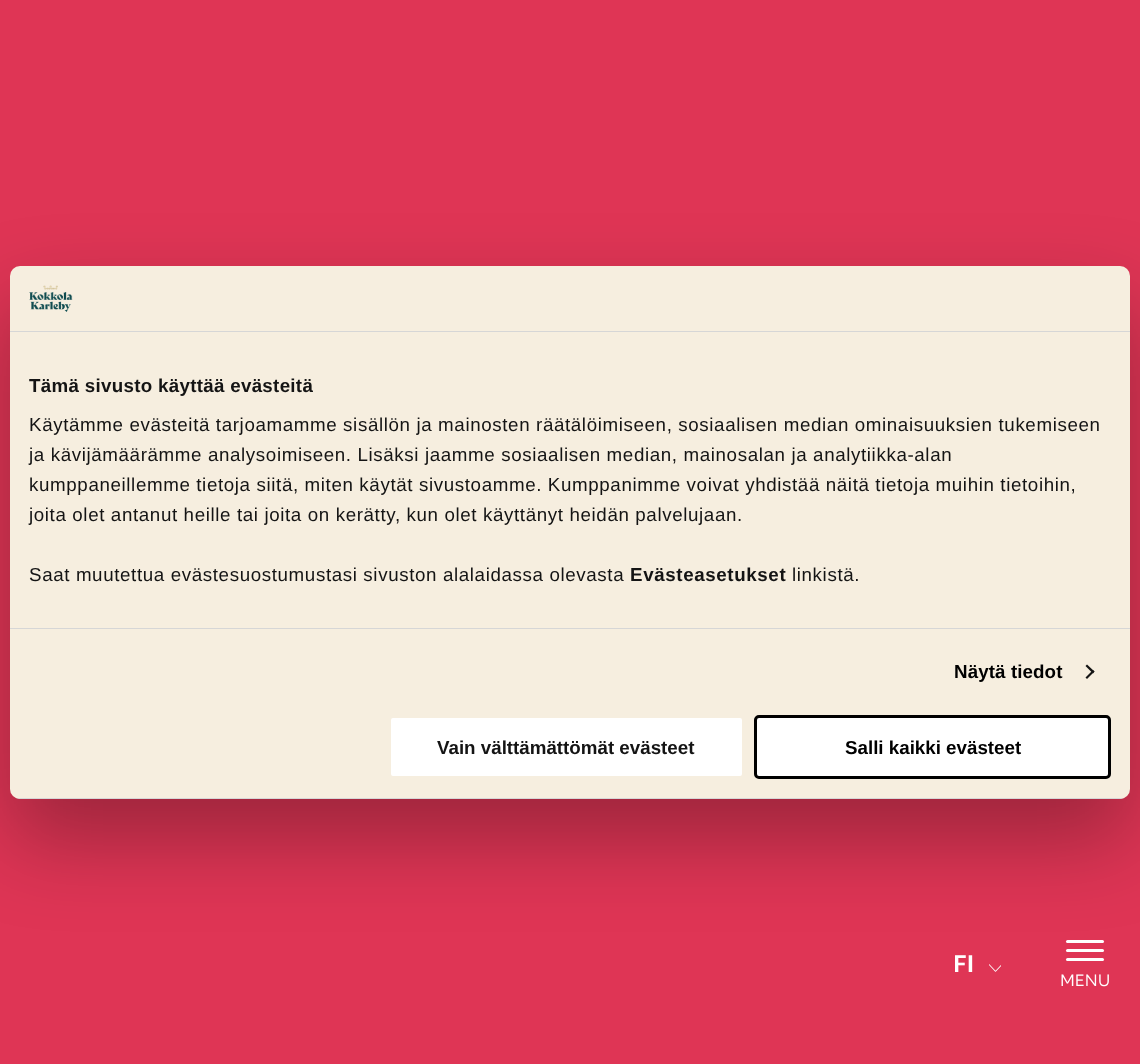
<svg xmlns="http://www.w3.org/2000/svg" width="1140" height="1064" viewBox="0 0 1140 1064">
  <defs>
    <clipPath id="clip1"><rect x="10" y="266" width="1120" height="533" rx="10"/></clipPath>
  </defs>
  <rect width="100%" height="100%" fill="#df3555"/>
  <image x="989" y="964" width="12" height="8" href="img/2.png"/>
  <rect x="1066" y="949" width="38" height="3" rx="1.5" fill="#fff"/>
  <rect x="1066" y="940" width="38" height="3" rx="1.5" fill="#fff"/>
  <rect x="1066" y="958" width="38" height="3" rx="1.5" fill="#fff"/>
  <rect x="10" y="306" width="1120" height="533" rx="10" fill="#0000004d" filter="blur(42.5px)"/>
  <rect x="10" y="266" width="1120" height="533" rx="10" fill="#f6eedf"/>
  <path d="M10 331h1120v1H10z" fill="#d6d6d6"/>
  <image x="29" y="285" width="44" height="27" href="img/1.png"/>
  <path d="M10 628h1120v1H10z" fill="#d6d6d6"/>
  <path d="M1087 664.5L1094.5 671.5L1093 673.5L1085.5 666Z" fill="#141414"/>
  <path d="M1093 670L1094.5 671.5L1087 679L1085.5 677.5Z" fill="#141414"/>
  <g clip-path="url(#clip1)">
    <path d="M10 798h1120v1H10z" fill="#d6d6d6"/>
  </g>
  <rect x="389.5" y="716.5" width="354" height="61" rx="3.5" fill="#fff" stroke="#f6eedf" stroke-width="3"/>
  <rect x="755.5" y="716.5" width="354" height="61" rx="3.5" fill="#fff" stroke="#000" stroke-width="3"/>
  <text x="29" y="392" font-family="Liberation Sans" font-size="18.75" font-weight="bold" letter-spacing="0.3" fill="#141414">Tämä sivusto käyttää evästeitä</text>
  <g font-family="Liberation Sans" font-size="18.75" letter-spacing="0.62" fill="#141414">
    <text x="29" y="431">Käytämme evästeitä tarjoamamme sisällön ja mainosten räätälöimiseen, sosiaalisen median ominaisuuksien tukemiseen</text>
    <text x="29" y="461">ja kävijämäärämme analysoimiseen. Lisäksi jaamme sosiaalisen median, mainosalan ja analytiikka-alan</text>
    <text x="29" y="491">kumppaneillemme tietoja siitä, miten käytät sivustoamme. Kumppanimme voivat yhdistää näitä tietoja muihin tietoihin,</text>
    <text x="29" y="521">joita olet antanut heille tai joita on kerätty, kun olet käyttänyt heidän palvelujaan.</text>
    <text x="29" y="581">Saat muutettua evästesuostumustasi sivuston alalaidassa olevasta</text>
  </g>
  <text x="630" y="581" font-family="Liberation Sans" font-size="18.75" font-weight="bold" letter-spacing="0.62" fill="#141414">Evästeasetukset</text>
  <text x="792" y="581" font-family="Liberation Sans" font-size="18.75" letter-spacing="0.62" fill="#141414">linkistä.</text>
  <text x="954" y="678" font-family="Liberation Sans" font-size="18.75" font-weight="bold" letter-spacing="0.1" fill="#000">Näytä tiedot</text>
  <text x="437" y="754" font-family="Liberation Sans" font-size="18.75" font-weight="bold" fill="#141414">Vain välttämättömät evästeet</text>
  <text x="845" y="754" font-family="Liberation Sans" font-size="18.75" font-weight="bold" fill="#000">Salli kaikki evästeet</text>
  <text x="953" y="972" font-family="'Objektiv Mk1'" font-size="22" font-weight="bold" fill="#fff">FI</text>
  <text x="1060" y="986" font-family="'Objektiv Mk1'" font-size="15" fill="#fff">MENU</text>
</svg>
